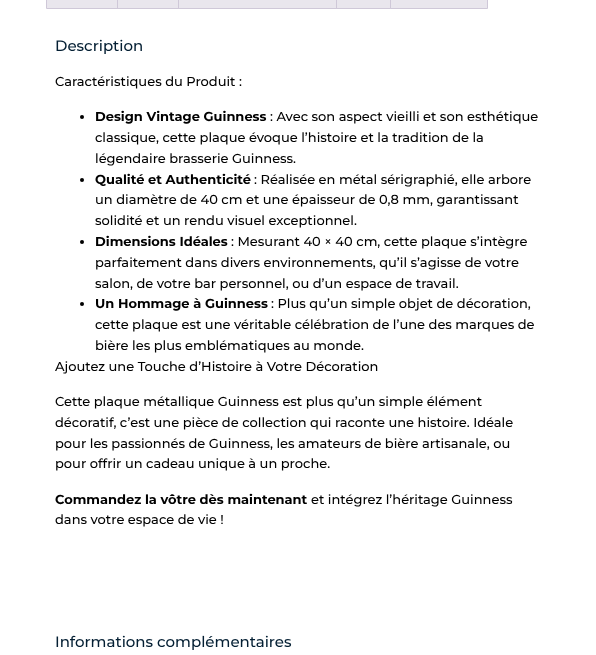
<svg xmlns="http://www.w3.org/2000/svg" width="596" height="655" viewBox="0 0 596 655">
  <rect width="100%" height="100%" fill="#fff"/>
  <path d="M47 0h70v8H47z" fill="#e9e6ed"/>
  <path d="M46.5 -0.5h76v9H46.5z" fill="none" stroke="#cfc8d8"/>
  <path d="M118 0h60v8H118z" fill="#e9e6ed"/>
  <path d="M117.5 -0.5h66v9H117.5z" fill="none" stroke="#cfc8d8"/>
  <path d="M179 0h157v8H179z" fill="#e9e6ed"/>
  <path d="M178.5 -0.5h163v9H178.5z" fill="none" stroke="#cfc8d8"/>
  <path d="M337 0h53v8H337z" fill="#e9e6ed"/>
  <path d="M336.5 -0.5h59v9H336.5z" fill="none" stroke="#cfc8d8"/>
  <path d="M390.5 -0.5h97v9H390.5z" fill="#e9e6ed" stroke="#cfc8d8"/>
  <circle cx="82" cy="117" r="2" fill="#000"/>
  <circle cx="82" cy="180" r="2" fill="#000"/>
  <circle cx="82" cy="242" r="2" fill="#000"/>
  <circle cx="82" cy="304" r="2" fill="#000"/>
  <text x="55" y="51" font-family="Montserrat" font-size="15" font-weight="500" fill="#041f33">Description</text>
  <text x="55" y="86" font-family="Montserrat" font-size="13" font-weight="500" fill="#000">Caractéristiques du Produit :</text>
  <text x="95" y="121" font-family="Montserrat" font-size="13" font-weight="bold" fill="#000">Design Vintage Guinness</text>
  <g font-family="Montserrat" font-size="13" font-weight="500" fill="#000">
    <text x="270" y="121">: Avec son aspect vieilli et son esthétique</text>
    <text x="95" y="142">classique, cette plaque évoque l’histoire et la tradition de la</text>
    <text x="95" y="163">légendaire brasserie Guinness.</text>
  </g>
  <text x="95" y="184" font-family="Montserrat" font-size="13" font-weight="bold" fill="#000">Qualité et Authenticité</text>
  <g font-family="Montserrat" font-size="13" font-weight="500" fill="#000">
    <text x="254" y="184">: Réalisée en métal sérigraphié, elle arbore</text>
    <text x="95" y="204">un diamètre de 40 cm et une épaisseur de 0,8 mm, garantissant</text>
    <text x="95" y="225">solidité et un rendu visuel exceptionnel.</text>
  </g>
  <text x="95" y="246" font-family="Montserrat" font-size="13" font-weight="bold" fill="#000">Dimensions Idéales</text>
  <g font-family="Montserrat" font-size="13" font-weight="500" fill="#000">
    <text x="231" y="246">: Mesurant 40 × 40 cm, cette plaque s’intègre</text>
    <text x="95" y="267">parfaitement dans divers environnements, qu’il s’agisse de votre</text>
    <text x="95" y="288">salon, de votre bar personnel, ou d’un espace de travail.</text>
  </g>
  <text x="95" y="308" font-family="Montserrat" font-size="13" font-weight="bold" fill="#000">Un Hommage à Guinness</text>
  <g font-family="Montserrat" font-size="13" font-weight="500" fill="#000">
    <text x="271" y="308">: Plus qu’un simple objet de décoration,</text>
    <text x="95" y="329">cette plaque est une véritable célébration de l’une des marques de</text>
    <text x="95" y="350">bière les plus emblématiques au monde.</text>
    <text x="55" y="371">Ajoutez une Touche d’Histoire à Votre Décoration</text>
    <text x="55" y="406">Cette plaque métallique Guinness est plus qu’un simple élément</text>
    <text x="55" y="427">décoratif, c’est une pièce de collection qui raconte une histoire. Idéale</text>
    <text x="55" y="448">pour les passionnés de Guinness, les amateurs de bière artisanale, ou</text>
    <text x="55" y="468">pour offrir un cadeau unique à un proche.</text>
  </g>
  <text x="55" y="504" font-family="Montserrat" font-size="13" font-weight="bold" fill="#000">Commandez la vôtre dès maintenant</text>
  <g font-family="Montserrat" font-size="13" font-weight="500" fill="#000">
    <text x="311" y="504">et intégrez l’héritage Guinness</text>
    <text x="55" y="524">dans votre espace de vie !</text>
  </g>
  <text x="55" y="647" font-family="Montserrat" font-size="15" font-weight="500" fill="#041f33">Informations complémentaires</text>
</svg>
